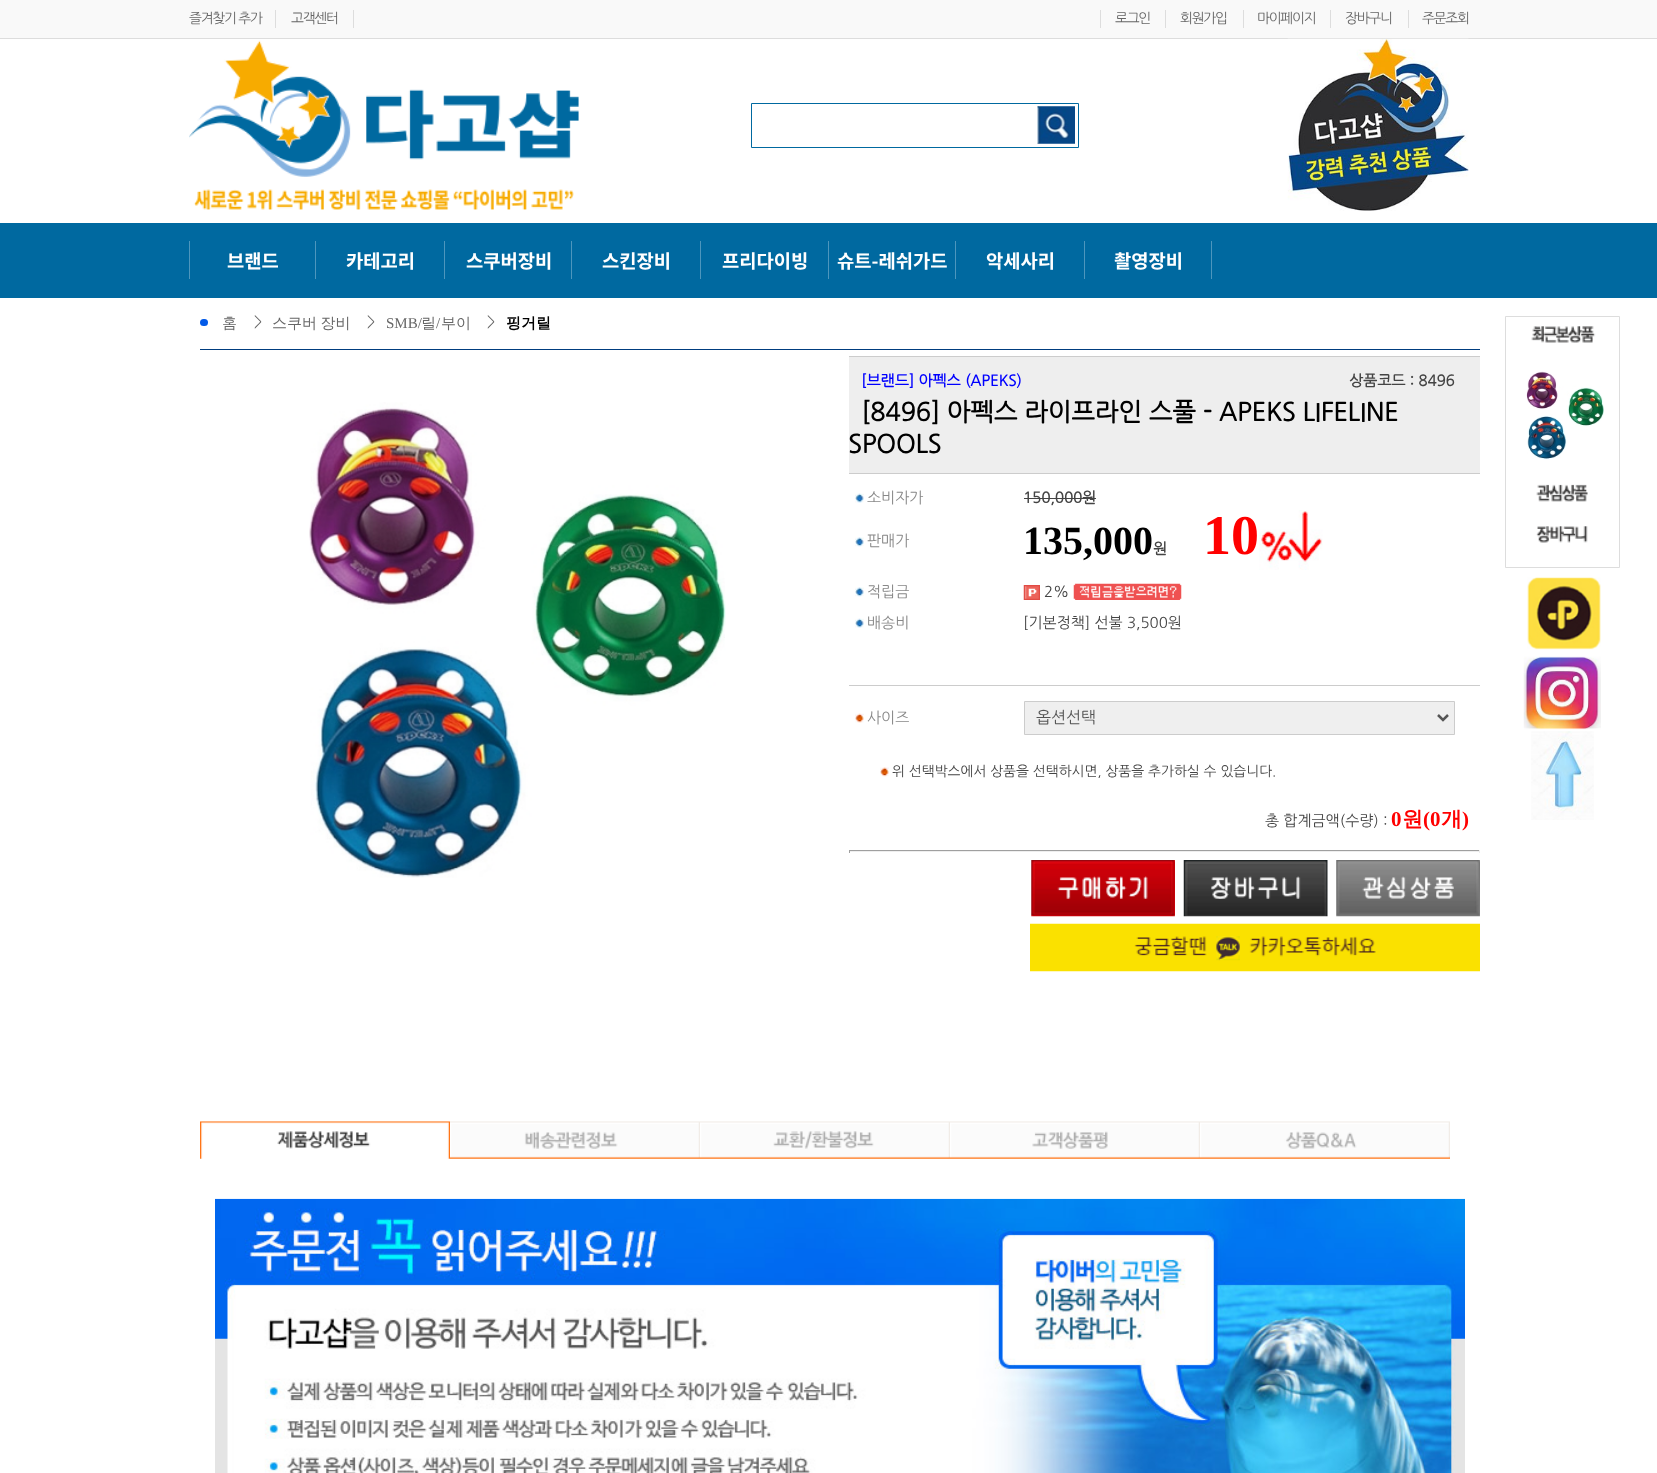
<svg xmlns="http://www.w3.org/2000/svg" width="1657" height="1473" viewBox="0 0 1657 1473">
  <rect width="100%" height="100%" fill="#fff"/>
  <path d="M0 0h1657v38H0z" fill="#f9f9f9"/>
  <path d="M0 38h1657v1H0z" fill="#ddd"/>
  <path d="M275 10h1v18H275z" fill="#ddd"/>
  <path d="M353 10h1v18H353z" fill="#ddd"/>
  <path d="M1100 10h1v18H1100z" fill="#ddd"/>
  <path d="M1165 10h1v18H1165z" fill="#ddd"/>
  <path d="M1243 10h1v18H1243z" fill="#ddd"/>
  <path d="M1330 10h1v18H1330z" fill="#ddd"/>
  <path d="M1408 10h1v18H1408z" fill="#ddd"/>
  <image x="189" y="40" width="390" height="170" href="img/1.png"/>
  <path d="M751.5 103.5h327v44H751.5z" fill="none" stroke="#0069a0"/>
  <image x="1037" y="106" width="38" height="38" href="img/2.png"/>
  <image x="1287" y="38" width="182" height="173" href="img/3.png"/>
  <path d="M0 223h1657v75H0z" fill="#0069a0"/>
  <path d="M189 241h1v38H189z" fill="#4d96bd"/>
  <path d="M315 241h1v38H315z" fill="#4d96bd"/>
  <path d="M444 241h1v38H444z" fill="#4d96bd"/>
  <path d="M571 241h1v38H571z" fill="#4d96bd"/>
  <path d="M700 241h1v38H700z" fill="#4d96bd"/>
  <path d="M828 241h1v38H828z" fill="#4d96bd"/>
  <path d="M955 241h1v38H955z" fill="#4d96bd"/>
  <path d="M1084 241h1v38H1084z" fill="#4d96bd"/>
  <path d="M1211 241h1v38H1211z" fill="#4d96bd"/>
  <rect x="200" y="319" width="8" height="7" rx="3.5" fill="#025ae8"/>
  <path d="M200 349h1280v1H200z" fill="#003d7f"/>
  <image x="309" y="402" width="417" height="476" href="img/4.png"/>
  <path d="M849 357h631v13H849z" fill="#eee"/>
  <path d="M849 356h631v1H849z" fill="#ccc"/>
  <path d="M849 370h631v103H849z" fill="#eee"/>
  <path d="M849 473h631v1H849z" fill="#ccc"/>
  <image x="855" y="493" width="9" height="10" href="img/5.png"/>
  <path d="M1024 498h72v1H1024z" fill="#444"/>
  <image x="855" y="537" width="9" height="10" href="img/6.png"/>
  <image x="1259" y="510" width="64" height="60" href="img/7.png"/>
  <image x="855" y="587" width="9" height="10" href="img/8.png"/>
  <image x="1023" y="585" width="17" height="15" href="img/9.png"/>
  <image x="1073" y="583" width="109" height="17" href="img/10.png"/>
  <image x="855" y="618" width="9" height="10" href="img/5.png"/>
  <path d="M849 685h631v1H849z" fill="#ccc"/>
  <image x="855" y="713" width="9" height="10" href="img/11.png"/>
  <path d="M1024.5 701.5h430v33H1024.5z" fill="#efefef" stroke="#ccc"/>
  <path d="M1438 715L1443 720L1448 715" fill="none" stroke="#555" stroke-width="2.5"/>
  <image x="880" y="767" width="9" height="10" href="img/12.png"/>
  <path d="M849 850h631v1H849z" fill="#9f9f9f"/>
  <path d="M1479 850h1v3H1479z" fill="#eee"/>
  <path d="M849 851h631v1H849z" fill="#eee"/>
  <path d="M849 850h1v3H849z" fill="#9f9f9f"/>
  <image x="1031" y="860" width="144" height="57" href="img/13.png"/>
  <image x="1183" y="860" width="145" height="57" href="img/14.png"/>
  <image x="1336" y="860" width="144" height="57" href="img/15.png"/>
  <image x="1030" y="923" width="450" height="49" href="img/16.png"/>
  <image x="200" y="1121" width="250" height="38" href="img/17.png"/>
  <image x="450" y="1121" width="250" height="38" href="img/18.png"/>
  <image x="700" y="1121" width="250" height="38" href="img/19.png"/>
  <image x="950" y="1121" width="250" height="38" href="img/20.png"/>
  <image x="1200" y="1121" width="250" height="38" href="img/21.png"/>
  <image x="215" y="1198" width="1250" height="275" href="img/22.png"/>
  <path d="M1505.5 316.5h114v251H1505.5z" fill="none" stroke="#ddd"/>
  <image x="1531" y="326" width="65" height="17" href="img/23.png"/>
  <image x="1526" y="371" width="78" height="89" href="img/24.png"/>
  <image x="1536" y="484" width="52" height="18" href="img/25.png"/>
  <image x="1536" y="526" width="52" height="17" href="img/26.png"/>
  <image x="1527" y="577" width="74" height="73" href="img/27.png"/>
  <image x="1523" y="656" width="78" height="74" href="img/28.png"/>
  <image x="1531" y="731" width="63" height="89" href="img/29.png"/>
  <g font-family="NanumGothic" font-size="13.75" letter-spacing="-1.25" fill="#666">
    <text x="189" y="23">즐겨찾기 추가</text>
    <text x="291" y="23">고객센터</text>
    <text x="1115" y="23">로그인</text>
    <text x="1180" y="23">회원가입</text>
    <text x="1257" y="23">마이페이지</text>
    <text x="1345" y="23">장바구니</text>
    <text x="1422" y="23">주문조회</text>
  </g>
  <g font-family="Noto Sans KR" font-size="18.75" font-weight="bold" fill="#fff">
    <text x="227" y="268">브랜드</text>
    <text x="346" y="268">카테고리</text>
    <text x="466" y="268">스쿠버장비</text>
    <text x="602" y="268">스킨장비</text>
    <text x="722" y="268">프리다이빙</text>
    <text x="837" y="268">슈트-레쉬가드</text>
    <text x="986" y="268">악세사리</text>
    <text x="1114" y="268">촬영장비</text>
  </g>
  <text x="222" y="328" font-family="WenQuanYi Zen Hei" font-size="15" font-weight="500" fill="#666">홈</text>
  <text x="254" y="327" font-family="NanumGothic" font-size="15" fill="#666">&gt;</text>
  <text x="272" y="328" word-spacing="-1" font-family="WenQuanYi Zen Hei" font-size="15" font-weight="500" fill="#666">스쿠버 장비</text>
  <text x="367" y="327" font-family="NanumGothic" font-size="15" fill="#666">&gt;</text>
  <text x="386" y="328" font-family="Liberation Serif" font-size="15" fill="#666">SMB/</text>
  <text x="421" y="328" font-family="WenQuanYi Zen Hei" font-size="15" font-weight="500" fill="#666">릴</text>
  <text x="436" y="328" font-family="Liberation Serif" font-size="15" fill="#666">/</text>
  <text x="441" y="328" font-family="WenQuanYi Zen Hei" font-size="15" font-weight="500" fill="#666">부이</text>
  <text x="487" y="327" font-family="NanumGothic" font-size="15" fill="#666">&gt;</text>
  <text x="506" y="328" font-family="WenQuanYi Zen Hei" font-size="15" font-weight="bold" fill="#000">핑거릴</text>
  <text x="861" y="386" font-family="NanumGothic" font-size="15" font-weight="bold" fill="#00f">[브랜드] 아펙스 (APEKS)</text>
  <text x="1349" y="386" font-family="NanumGothic" font-size="15" font-weight="bold" fill="#444">상품코드 : 8496</text>
  <g font-family="NanumGothic" font-size="25" font-weight="bold" fill="#000">
    <text x="861" y="421">[8496] 아펙스 라이프라인 스풀 - APEKS LIFELINE</text>
    <text x="848" y="453">SPOOLS</text>
  </g>
  <text x="867" y="503" font-family="NanumGothic" font-size="15" fill="#888">소비자가</text>
  <text x="1023" y="503" font-family="NanumGothic" font-size="15" font-weight="bold" fill="#444">150,000원</text>
  <text x="867" y="546" font-family="NanumGothic" font-size="15" fill="#888">판매가</text>
  <text x="1023" y="554" font-family="Liberation Serif" font-size="40" font-weight="bold" fill="#000">135,000</text>
  <text x="1153" y="554" font-family="NanumGothic" font-size="15" font-weight="bold" fill="#444">원</text>
  <text x="1203" y="554" font-family="Liberation Serif" font-size="56" font-weight="bold" fill="#f00">10</text>
  <text x="867" y="597" font-family="NanumGothic" font-size="15" fill="#888">적립금</text>
  <text x="1044" y="597" font-family="NanumGothic" font-size="15" fill="#444">2%</text>
  <text x="867" y="628" font-family="NanumGothic" font-size="15" fill="#888">배송비</text>
  <text x="1023" y="628" font-family="NanumGothic" font-size="15" fill="#444">[기본정책] 선불 3,500원</text>
  <text x="867" y="723" font-family="NanumGothic" font-size="15" fill="#888">사이즈</text>
  <text x="1036" y="723" font-family="'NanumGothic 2'" font-size="16" fill="#555">옵션선택</text>
  <text x="892" y="776" font-family="NanumGothic" font-size="13.75" fill="#444">위 선택박스에서 상품을 선택하시면, 상품을 추가하실 수 있습니다.</text>
  <text x="1265" y="826" font-family="NanumGothic" font-size="15" fill="#444">총 합계금액(수량) :</text>
  <text x="1391" y="826" font-family="Liberation Serif" font-size="21" font-weight="bold" fill="#f00">0</text>
  <text x="1402" y="826" font-family="WenQuanYi Zen Hei" font-size="21" font-weight="bold" fill="#f00">원</text>
  <text x="1423" y="826" font-family="Liberation Serif" font-size="21" font-weight="bold" fill="#f00">(0</text>
  <text x="1441" y="826" font-family="WenQuanYi Zen Hei" font-size="21" font-weight="bold" fill="#f00">개</text>
  <text x="1462" y="826" font-family="Liberation Serif" font-size="21" font-weight="bold" fill="#f00">)</text>
</svg>
